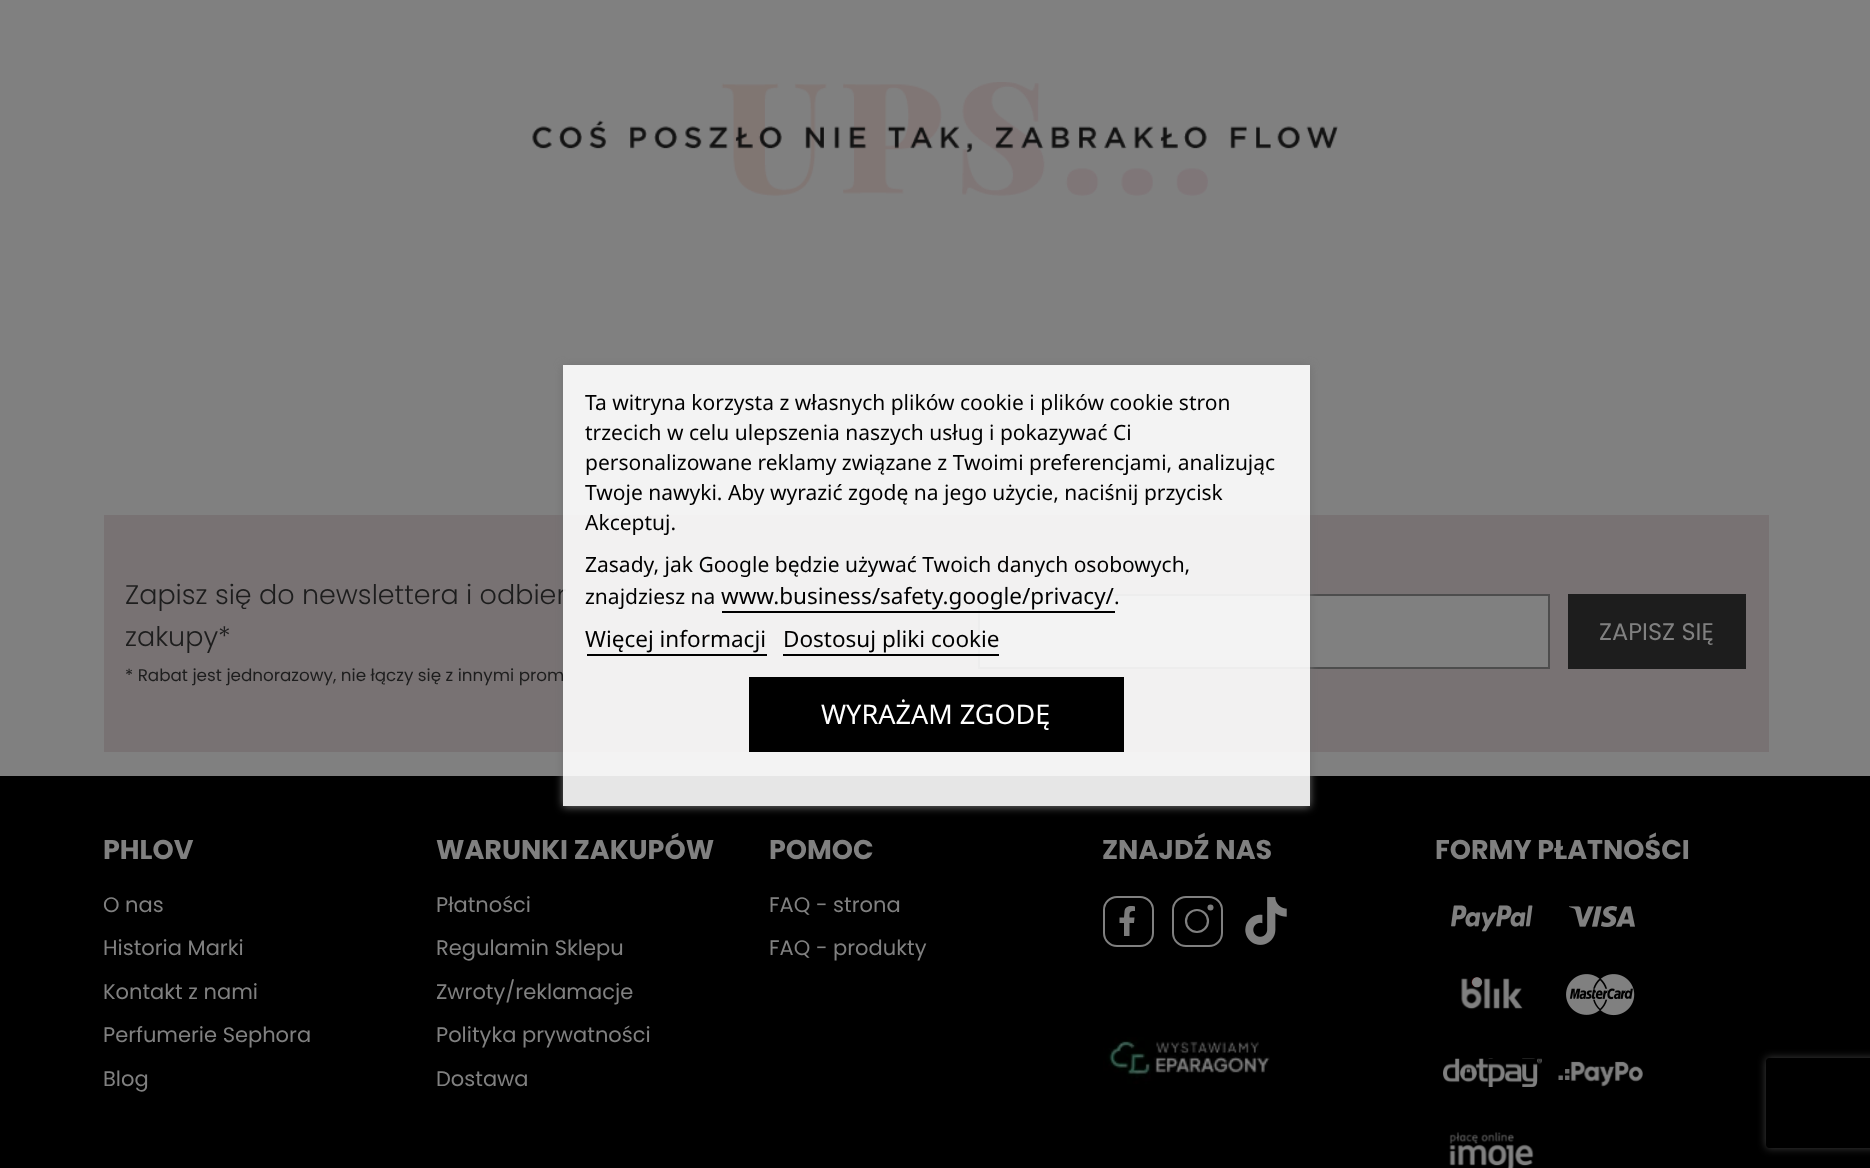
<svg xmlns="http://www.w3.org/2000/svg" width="1870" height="1168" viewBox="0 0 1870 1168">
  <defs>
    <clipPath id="clip1"><path d="M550 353H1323V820H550ZM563 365H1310V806H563Z" clip-rule="evenodd"/></clipPath>
    <clipPath id="clip2"><path d="M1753 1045H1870V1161H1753ZM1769 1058H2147C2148.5 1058 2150 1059.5 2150 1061V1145C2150 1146.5 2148.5 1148 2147 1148H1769C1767.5 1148 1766 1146.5 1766 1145V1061C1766 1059.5 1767.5 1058 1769 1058Z" clip-rule="evenodd"/></clipPath>
  </defs>
  <rect width="100%" height="100%" fill="#808080"/>
  <image x="532" y="82" width="806" height="114" href="img/1.png"/>
  <path d="M0 776h1870v392H0z" fill="#000"/>
  <path d="M104 515h1665v237H104z" fill="#787273"/>
  <path d="M979 595h570v73H979z" fill="#808080" stroke="#4d4d4d" stroke-width="2"/>
  <g clip-path="url(#clip1)">
    <path d="M563 366h747v441H563z" fill="#707070" filter="blur(4px)"/>
  </g>
  <path d="M1134 923L1134.5 917.5H1129.5C1129.5 912.5 1129 911 1135 911V906.5C1130 905.5 1125 906 1124.5 911.5L1124 917.5H1119.5V923H1124V936H1129.5V923Z" fill="#7c7c7c"/>
  <rect x="1104" y="897" width="49" height="49" rx="13" fill="none" stroke="#808080" stroke-width="2"/>
  <rect x="1173" y="897" width="49" height="49" rx="13" fill="none" stroke="#808080" stroke-width="2"/>
  <circle cx="1197" cy="921" r="11" fill="none" stroke="#808080" stroke-width="2.2"/>
  <circle cx="1210.5" cy="907.5" r="3" fill="#7c7c7c"/>
  <image x="1245" y="897" width="42" height="48" href="img/2.png"/>
  <image x="1103" y="1037" width="167" height="47" href="img/3.png"/>
  <image x="1451" y="905" width="82" height="27" href="img/4.png"/>
  <image x="1569" y="906" width="66" height="21" href="img/5.png"/>
  <image x="1461" y="977" width="62" height="33" href="img/6.png"/>
  <image x="1566" y="974" width="69" height="42" href="img/7.png"/>
  <image x="1443" y="1058" width="99" height="29" href="img/8.png"/>
  <image x="1558" y="1061" width="85" height="26" href="img/9.png"/>
  <image x="1449" y="1132" width="85" height="36" href="img/10.png"/>
  <path d="M1568 594h178v75H1568z" fill="#1d1d1d"/>
  <g clip-path="url(#clip2)">
    <rect x="1766" y="1058" width="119" height="90" rx="3" fill="#404040" filter="blur(4px)"/>
  </g>
  <text x="103" y="859" font-family="Poppins" font-size="27" font-weight="bold" fill="#808080">PHLOV</text>
  <g font-family="Poppins" font-size="21" fill="#808080">
    <text x="103" y="912">O nas</text>
    <text x="103" y="955">Historia Marki</text>
    <text x="103" y="999">Kontakt z nami</text>
    <text x="103" y="1042">Perfumerie Sephora</text>
    <text x="103" y="1086">Blog</text>
  </g>
  <text x="436" y="859" font-family="Poppins" font-size="27" font-weight="bold" fill="#808080">WARUNKI ZAKUPÓW</text>
  <g font-family="Poppins" font-size="21" fill="#808080">
    <text x="436" y="912">Płatności</text>
    <text x="436" y="955">Regulamin Sklepu</text>
    <text x="436" y="999">Zwroty/reklamacje</text>
    <text x="436" y="1042">Polityka prywatności</text>
    <text x="436" y="1086">Dostawa</text>
  </g>
  <text x="769" y="859" font-family="Poppins" font-size="27" font-weight="bold" fill="#808080">POMOC</text>
  <g font-family="Poppins" font-size="21" fill="#808080">
    <text x="769" y="912">FAQ - strona</text>
    <text x="769" y="955">FAQ - produkty</text>
  </g>
  <g font-family="Poppins" font-size="27" font-weight="bold" fill="#808080">
    <text x="1102" y="859">ZNAJDŹ NAS</text>
    <text x="1435" y="859">FORMY PŁATNOŚCI</text>
  </g>
  <g font-family="Poppins" font-size="27" font-weight="300" fill="#1d1d1d">
    <text x="125" y="604">Zapisz się do newslettera i odbier</text>
    <text x="125" y="646">zakupy*</text>
  </g>
  <text x="125" y="681" font-family="Poppins" font-size="16.8" fill="#1d1d1d">* Rabat jest jednorazowy, nie łączy się z innymi prom</text>
  <path d="M563 365h747v441H563z" fill="#ffffffe6"/>
  <text x="783" y="647" font-family="Noto Sans" font-size="22.5" fill="#000">Dostosuj pliki cookie</text>
  <path d="M783 654h216v2H783z" fill="#000"/>
  <text x="585" y="647" font-family="Noto Sans" font-size="22.5" fill="#000">Więcej informacji</text>
  <path d="M587 654h180v2H587z" fill="#000"/>
  <text x="1114" y="604" font-family="Noto Sans" font-size="21" fill="#000">.</text>
  <text x="721" y="604" font-family="Noto Sans" font-size="22.5" fill="#000">www.business/safety.google/privacy/</text>
  <path d="M722 611h393v2H722z" fill="#000"/>
  <g font-family="Noto Sans" font-size="21" fill="#000">
    <text x="585" y="604">znajdziesz na</text>
    <text x="585" y="572">Zasady, jak Google będzie używać Twoich danych osobowych,</text>
    <text x="585" y="530">Akceptuj.</text>
    <text x="585" y="500">Twoje nawyki. Aby wyrazić zgodę na jego użycie, naciśnij przycisk</text>
    <text x="585" y="470">personalizowane reklamy związane z Twoimi preferencjami, analizując</text>
    <text x="585" y="440">trzecich w celu ulepszenia naszych usług i pokazywać Ci</text>
    <text x="585" y="410">Ta witryna korzysta z własnych plików cookie i plików cookie stron</text>
  </g>
  <path d="M749 677h375v75H749z" fill="#000"/>
  <text x="821" y="724" font-family="Noto Sans" font-size="27" fill="#fff">WYRAŻAM ZGODĘ</text>
  <text x="1599" y="640" font-family="Poppins" font-size="24" fill="#808080">ZAPISZ SIĘ</text>
</svg>
